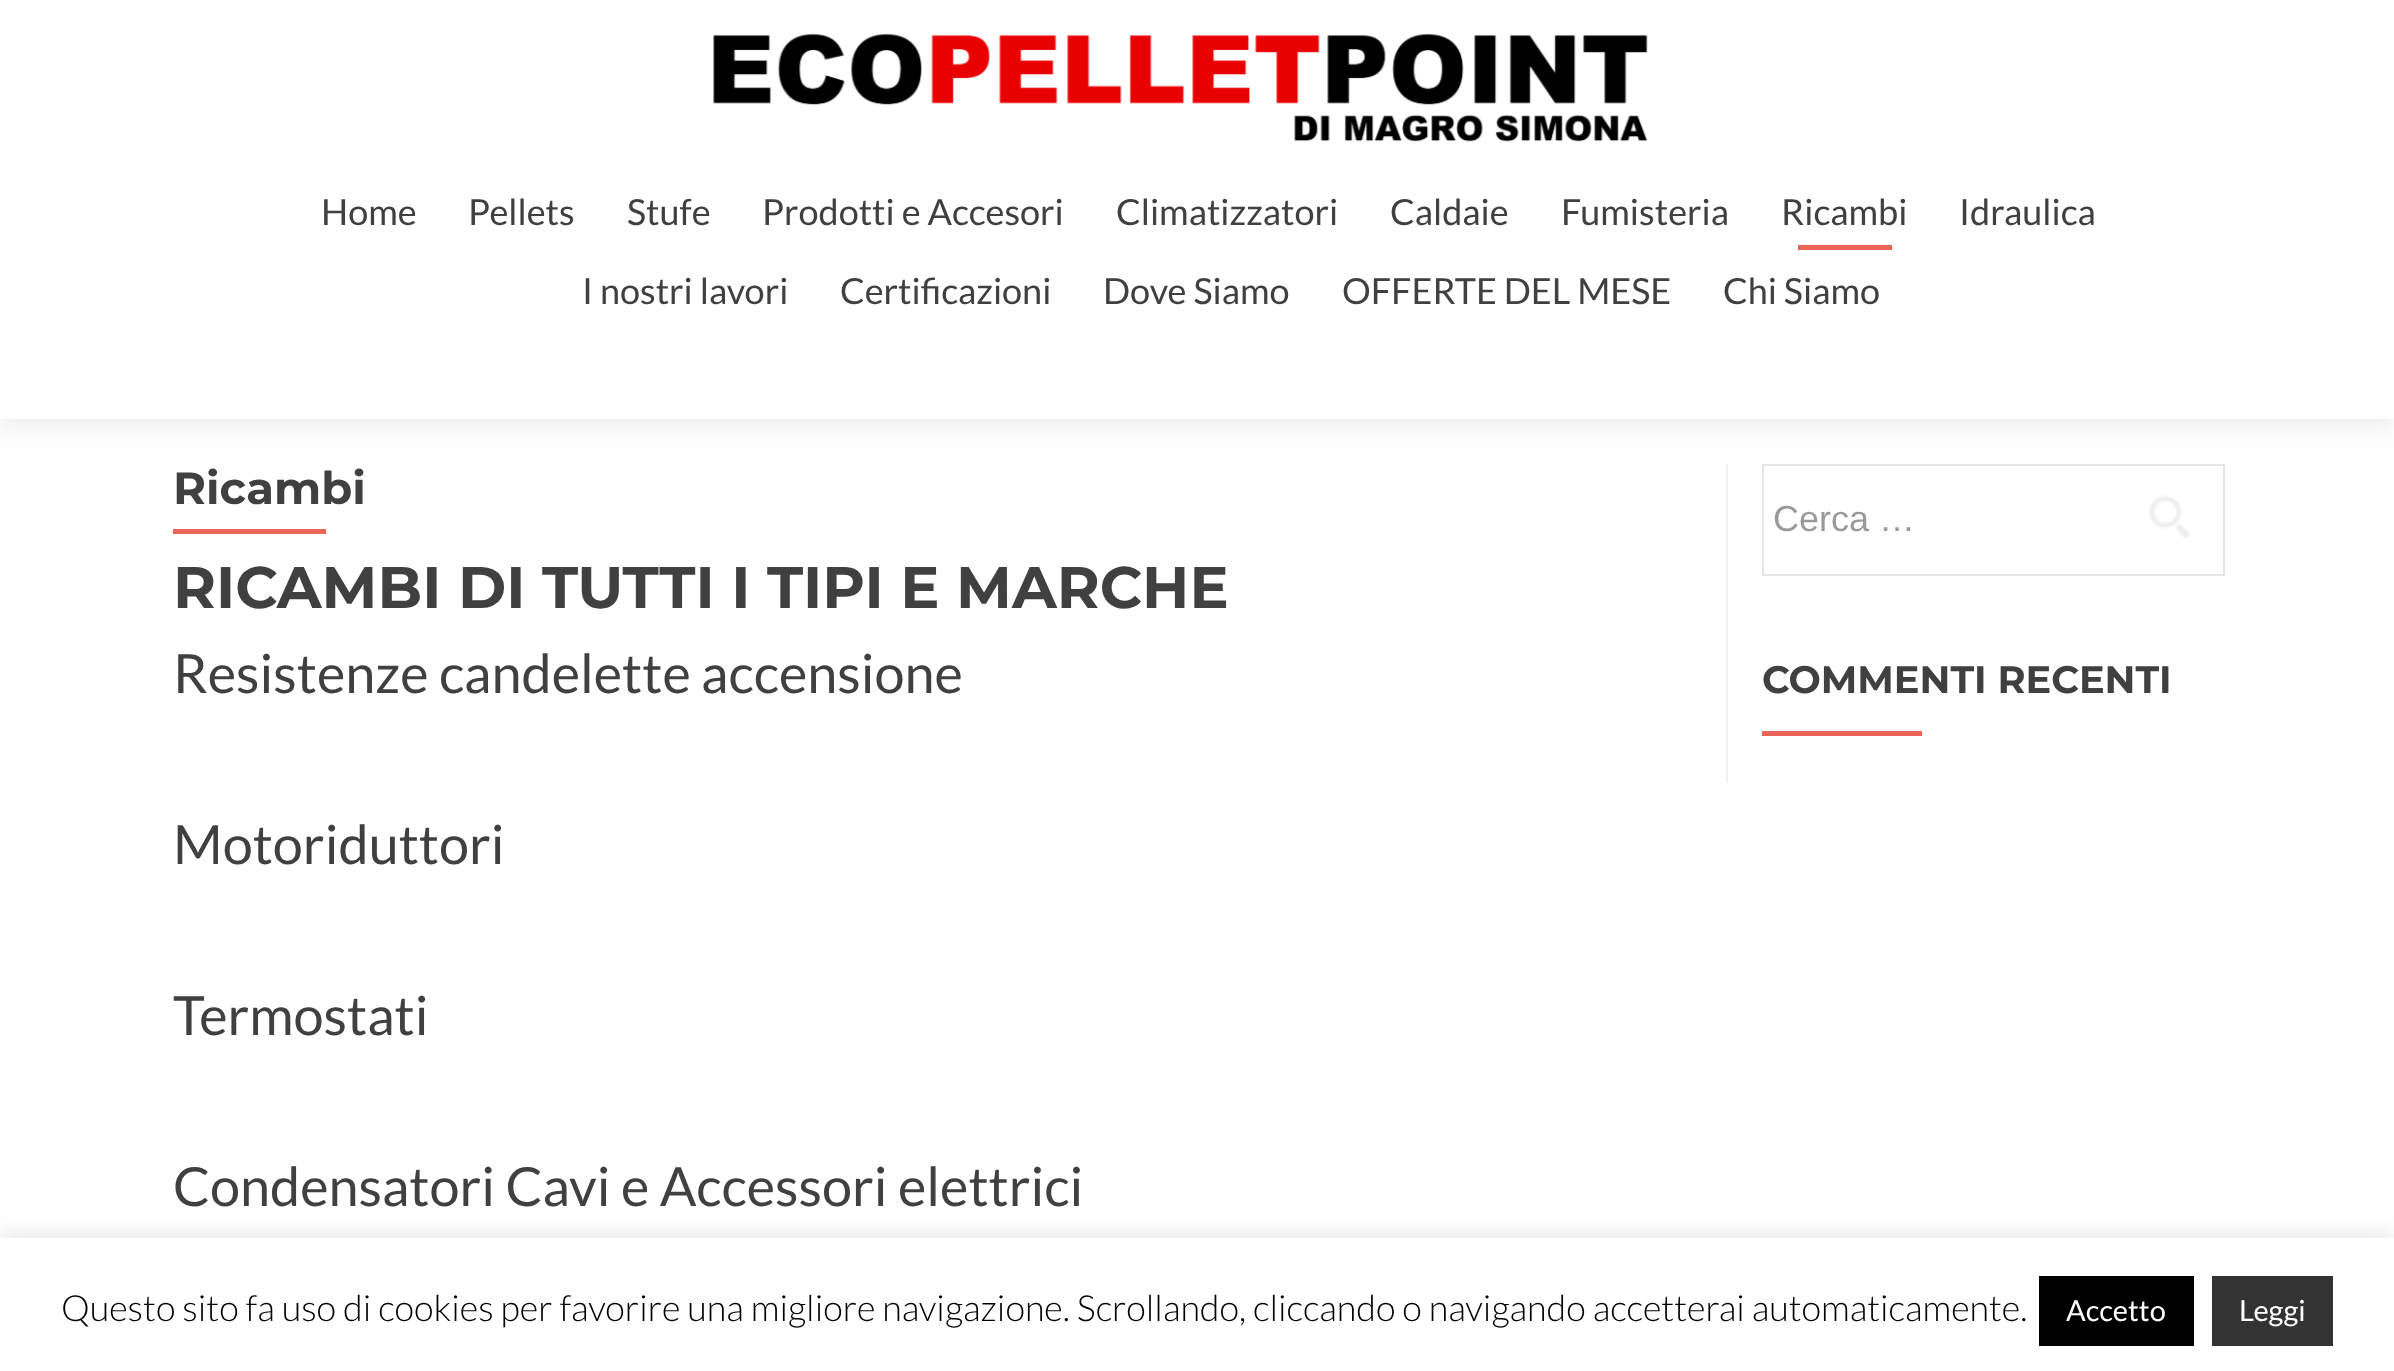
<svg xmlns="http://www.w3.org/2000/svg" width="2394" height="1371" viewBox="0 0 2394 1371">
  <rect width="100%" height="100%" fill="#fff"/>
  <path d="M1726 464h2v319H1726z" fill="#f2f2f2"/>
  <path d="M1763 465h461v110H1763z" fill="none" stroke="#e6e6e6" stroke-width="2"/>
  <path d="M0 11h2394v419H0z" fill="#32323214" filter="blur(12.5px)"/>
  <path d="M0 0h2394v419H0z" fill="#fff"/>
  <image x="713" y="33" width="935" height="109" href="img/1.png"/>
  <path d="M1798 245h94v5H1798z" fill="#e96656"/>
  <path d="M173 529h153v5H173z" fill="#e96656"/>
  <image x="2149" y="495" width="40" height="43" href="img/2.png"/>
  <path d="M1762 731h160v5H1762z" fill="#e96656"/>
  <path d="M0 1235h2394v135H0z" fill="#acabab4d" filter="blur(11px)"/>
  <path d="M0 1238h2394v133H0z" fill="#fff"/>
  <path d="M2039 1276h155v70H2039z" fill="#000"/>
  <path d="M2212 1276h121v70H2212z" fill="#333"/>
  <g font-family="Lato" font-size="36" fill="#404040">
    <text x="321" y="225">Home</text>
    <text x="468" y="225">Pellets</text>
    <text x="627" y="225">Stufe</text>
    <text x="762" y="225">Prodotti e Accesori</text>
    <text x="1116" y="225">Climatizzatori</text>
    <text x="1390" y="225">Caldaie</text>
    <text x="1561" y="225">Fumisteria</text>
    <text x="1781" y="225">Ricambi</text>
    <text x="1959" y="225">Idraulica</text>
    <text x="582" y="304">I nostri lavori</text>
    <text x="840" y="304">Certificazioni</text>
    <text x="1103" y="304">Dove Siamo</text>
    <text x="1342" y="304">OFFERTE DEL MESE</text>
    <text x="1723" y="304">Chi Siamo</text>
  </g>
  <text x="173" y="504" font-family="Montserrat" font-size="45" font-weight="100" fill="#404040">Ricambi</text>
  <text x="173" y="608" font-family="Montserrat" font-size="58.5" font-weight="100" fill="#404040">RICAMBI DI TUTTI I TIPI E MARCHE</text>
  <g font-family="Lato" font-size="54" fill="#404040">
    <text x="173" y="693">Resistenze candelette accensione</text>
    <text x="173" y="864">Motoriduttori</text>
    <text x="173" y="1035">Termostati</text>
    <text x="173" y="1206">Condensatori Cavi e Accessori elettrici</text>
  </g>
  <text x="1773" y="531" font-family="Liberation Sans" font-size="36" fill="#999">Cerca …</text>
  <text x="1762" y="693" font-family="Montserrat" font-size="38.25" font-weight="100" fill="#404040">COMMENTI RECENTI</text>
  <text x="61" y="1321" font-family="Lato" font-size="36" font-weight="300" fill="#000">Questo sito fa uso di cookies per favorire una migliore navigazione. Scrollando, cliccando o navigando accetterai automaticamente.</text>
  <g font-family="Lato" font-size="29" fill="#fff">
    <text x="2066" y="1321">Accetto</text>
    <text x="2239" y="1321">Leggi</text>
  </g>
</svg>
